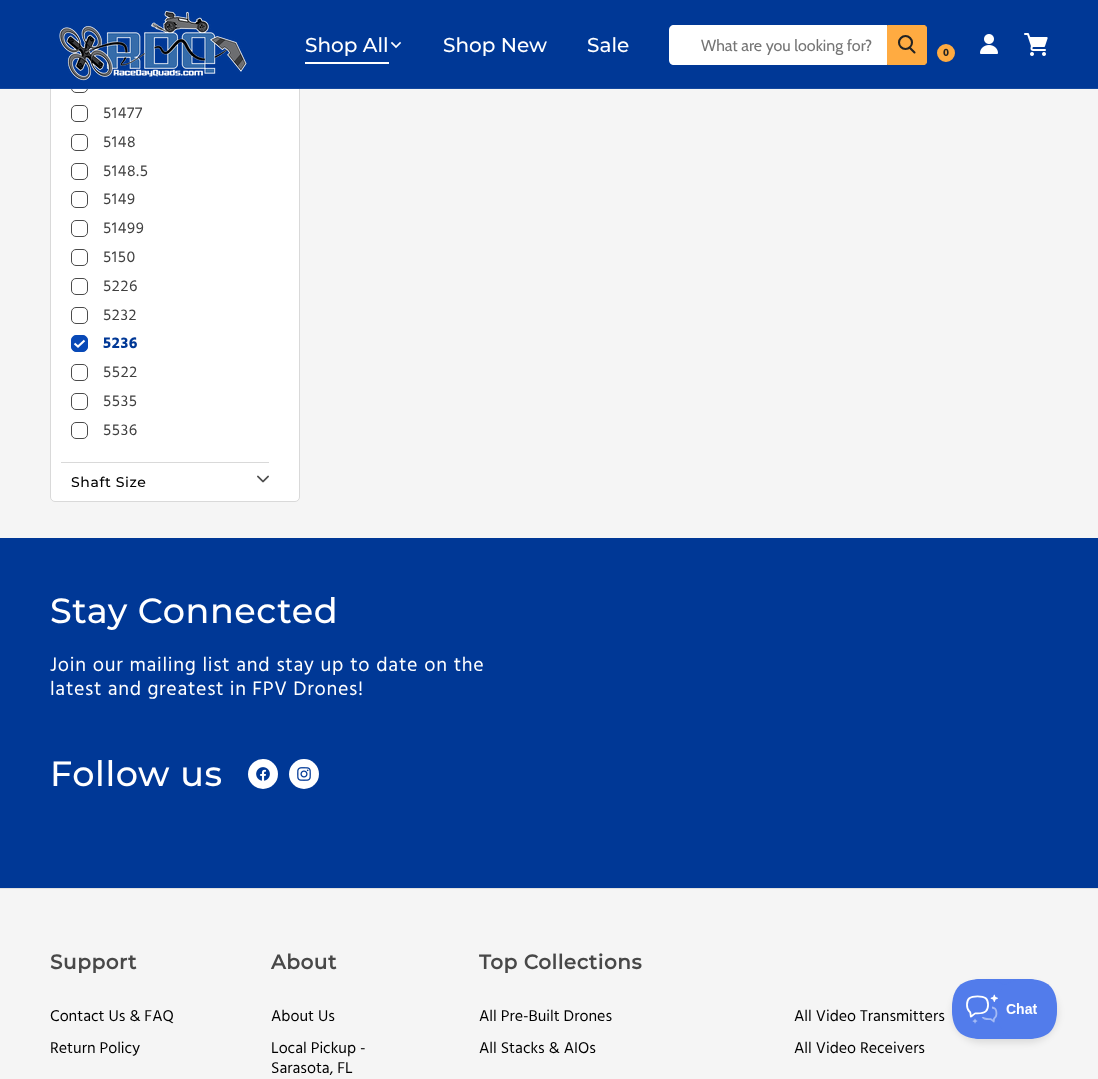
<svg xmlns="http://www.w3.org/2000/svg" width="1098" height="1079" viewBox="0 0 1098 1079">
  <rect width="100%" height="100%" fill="#f5f5f5"/>
  <rect x="50.5" y="-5.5" width="249" height="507" rx="4.5" fill="#fff" stroke="#d9d9d9"/>
  <rect x="71.5" y="76.5" width="16" height="16" rx="4.5" fill="none" stroke="#4b4b4b"/>
  <path d="M0 0h1098v88H0z" fill="#003896"/>
  <path d="M0 88h1098v1H0z" fill="#14489e"/>
  <image x="59" y="10" width="188" height="71" href="img/1.png"/>
  <path d="M305 62h84v2H305z" fill="#fff"/>
  <path d="M396 47L400 43M396 47L392 43" fill="none" stroke="#fff" stroke-width="1.7" stroke-linecap="square"/>
  <path d="M674 25H887V65H674C671 65 669 63 669 60V30C669 27 671 25 674 25Z" fill="#fff"/>
  <path d="M887.5 25.5H924C925.5 25.5 926.5 26.5 926.5 28V62C926.5 63.5 925.5 64.5 924 64.5H887.5Z" fill="#ffab41" stroke="#ffab41"/>
  <path d="M914.5 52.5L910 48" fill="none" stroke="#222" stroke-width="2.1" stroke-linecap="round"/>
  <circle cx="905.5" cy="42.5" r="6.5" fill="none" stroke="#222" stroke-width="2.1"/>
  <circle cx="946" cy="53" r="10" fill="#ffab41" stroke="#003896" stroke-width="2"/>
  <image x="980" y="34" width="18" height="20" href="img/2.png"/>
  <image x="1024" y="33" width="24" height="23" href="img/3.png"/>
  <rect x="71.5" y="105.5" width="16" height="16" rx="4.5" fill="none" stroke="#4b4b4b"/>
  <rect x="71.5" y="134.5" width="16" height="16" rx="4.5" fill="none" stroke="#4b4b4b"/>
  <rect x="71.5" y="163.5" width="16" height="16" rx="4.5" fill="none" stroke="#4b4b4b"/>
  <rect x="71.5" y="191.5" width="16" height="16" rx="4.5" fill="none" stroke="#4b4b4b"/>
  <rect x="71.5" y="220.5" width="16" height="16" rx="4.5" fill="none" stroke="#4b4b4b"/>
  <rect x="71.5" y="249.5" width="16" height="16" rx="4.5" fill="none" stroke="#4b4b4b"/>
  <rect x="71.5" y="278.5" width="16" height="16" rx="4.5" fill="none" stroke="#4b4b4b"/>
  <rect x="71.5" y="307.5" width="16" height="16" rx="4.5" fill="none" stroke="#4b4b4b"/>
  <rect x="71.5" y="335.5" width="16" height="16" rx="4.5" fill="#0849b7" stroke="#0849b7"/>
  <path d="M74.5 343.5L78 346.5L84.5 340.5" fill="none" stroke="#fff" stroke-width="2.1"/>
  <rect x="71.5" y="364.5" width="16" height="16" rx="4.5" fill="none" stroke="#4b4b4b"/>
  <rect x="71.5" y="393.5" width="16" height="16" rx="4.5" fill="none" stroke="#4b4b4b"/>
  <rect x="71.5" y="422.5" width="16" height="16" rx="4.5" fill="none" stroke="#4b4b4b"/>
  <path d="M61 462h208v1H61z" fill="#d9d9d9"/>
  <image x="257" y="475" width="12" height="8" href="img/4.png"/>
  <path d="M0 538h1098v350H0z" fill="#003896"/>
  <circle cx="263" cy="774" r="15" fill="#fff"/>
  <image x="256" y="767" width="14" height="14" href="img/5.png"/>
  <circle cx="304" cy="774" r="15" fill="#fff"/>
  <image x="297" y="767" width="14" height="14" href="img/6.png"/>
  <path d="M0 888h1098v1H0z" fill="#e1e1e1"/>
  <rect x="952" y="983" width="106" height="60" rx="30" fill="#0000001a" filter="blur(3.5px)"/>
  <image x="952" y="979" width="105" height="60" href="img/7.png"/>
  <g font-family="Montserrat" font-size="20" font-weight="500" fill="#fff">
    <text x="305" y="52">Shop All</text>
    <text x="443" y="52">Shop New</text>
    <text x="587" y="52">Sale</text>
  </g>
  <text x="701" y="51" font-family="Cabin" font-size="16" fill="#757575">What are you looking for?</text>
  <text x="943" y="56" font-family="Hind" font-size="11" font-weight="bold" letter-spacing="0.7" fill="#222">0</text>
  <g font-family="Hind" font-size="16" letter-spacing="0.7" fill="#404040">
    <text x="103" y="118">51477</text>
    <text x="103" y="147">5148</text>
    <text x="103" y="176">5148.5</text>
    <text x="103" y="204">5149</text>
    <text x="103" y="233">51499</text>
    <text x="103" y="262">5150</text>
    <text x="103" y="291">5226</text>
    <text x="103" y="320">5232</text>
  </g>
  <text x="103" y="348" font-family="Hind" font-size="16" font-weight="bold" letter-spacing="0.7" fill="#003896">5236</text>
  <g font-family="Hind" font-size="16" letter-spacing="0.7" fill="#404040">
    <text x="103" y="377">5522</text>
    <text x="103" y="406">5535</text>
    <text x="103" y="435">5536</text>
  </g>
  <text x="71" y="487" font-family="Montserrat" font-size="14" font-weight="500" letter-spacing="0.6" fill="#000">Shaft Size</text>
  <text x="50" y="623" font-family="Montserrat" font-size="35" font-weight="500" letter-spacing="0.6" fill="#fff">Stay Connected</text>
  <g font-family="Hind" font-size="20" letter-spacing="0.7" fill="#fff">
    <text x="50" y="671" word-spacing="0.5">Join our mailing list and stay up to date on the</text>
    <text x="50" y="695">latest and greatest in FPV Drones!</text>
  </g>
  <text x="50" y="786" font-family="Montserrat" font-size="35" font-weight="500" letter-spacing="0.6" fill="#fff">Follow us</text>
  <text x="50" y="969" font-family="Montserrat" font-size="20" font-weight="bold" letter-spacing="0.6" fill="#484848">Support</text>
  <g font-family="Hind" font-size="16" fill="#000">
    <text x="50" y="1021">Contact Us &amp; FAQ</text>
    <text x="50" y="1053">Return Policy</text>
  </g>
  <text x="271" y="969" font-family="Montserrat" font-size="20" font-weight="bold" letter-spacing="0.6" fill="#484848">About</text>
  <g font-family="Hind" font-size="16" fill="#000">
    <text x="271" y="1021">About Us</text>
    <text x="271" y="1053">Local Pickup -</text>
    <text x="271" y="1073">Sarasota, FL</text>
  </g>
  <text x="479" y="969" font-family="Montserrat" font-size="20" font-weight="bold" letter-spacing="0.6" fill="#484848">Top Collections</text>
  <g font-family="Hind" font-size="16" fill="#000">
    <text x="479" y="1021">All Pre-Built Drones</text>
    <text x="794" y="1021">All Video Transmitters</text>
    <text x="479" y="1053">All Stacks &amp; AIOs</text>
    <text x="794" y="1053">All Video Receivers</text>
  </g>
</svg>
